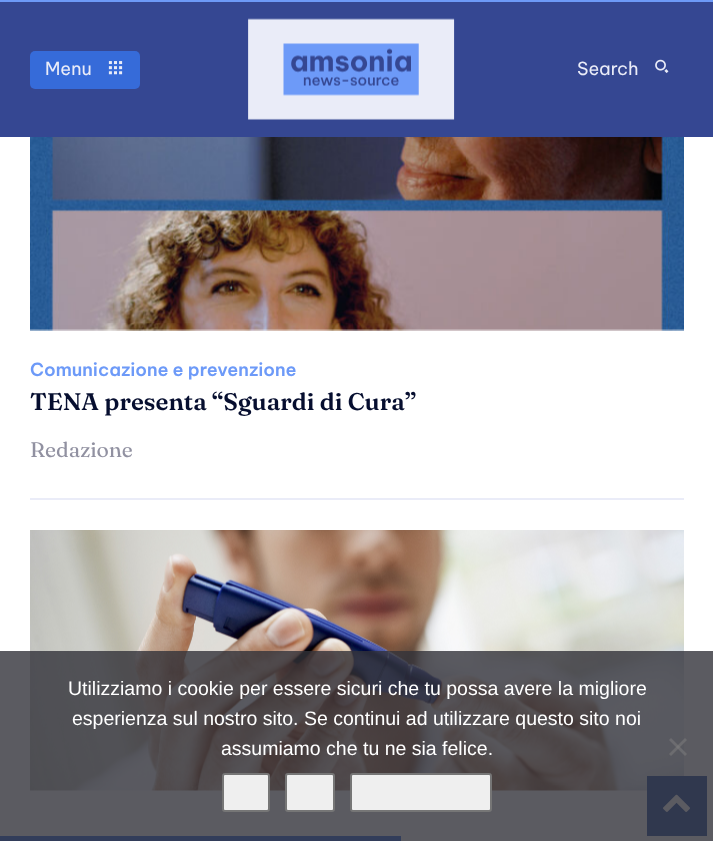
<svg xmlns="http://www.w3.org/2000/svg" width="713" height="841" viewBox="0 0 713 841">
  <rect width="100%" height="100%" fill="#fff"/>
  <path d="M0 0h713v2H0z" fill="#6d9af8"/>
  <path d="M0 2h713v135H0z" fill="#354792"/>
  <rect x="30" y="51" width="110" height="38" rx="5" fill="#366bd9"/>
  <image x="108" y="61" width="15" height="14" href="img/1.png"/>
  <image x="248" y="18" width="207" height="102" href="img/2.png"/>
  <image x="655" y="59" width="14" height="14" href="img/3.png"/>
  <image x="30" y="137" width="654" height="194" href="img/4.png"/>
  <path d="M30 498h654v2H30z" fill="#eaecf8"/>
  <image x="30" y="530" width="654" height="261" href="img/5.png"/>
  <path d="M647 776h60v60H647z" fill="#29509f"/>
  <image x="663" y="794" width="27" height="18" href="img/6.png"/>
  <path d="M0 836h401v5H0z" fill="#366bd9"/>
  <path d="M0 651h713v190H0z" fill="#32323acc"/>
  <path d="M685 738L687 740L671 756L669 754Z" fill="#80808080"/>
  <path d="M669 740L671 738L687 754L685 756Z" fill="#80808080"/>
  <rect x="223" y="774" width="46" height="37" rx="2" fill="#efefef" stroke="#767676" stroke-width="2"/>
  <rect x="286" y="774" width="48" height="37" rx="2" fill="#efefef" stroke="#767676" stroke-width="2"/>
  <rect x="351" y="774" width="140" height="37" rx="2" fill="#efefef" stroke="#767676" stroke-width="2"/>
  <g font-family="Be Vietnam Pro" font-size="18" fill="#eaecf8">
    <text x="45" y="75">Menu</text>
    <text x="577" y="75">Search</text>
  </g>
  <text x="30" y="376" font-family="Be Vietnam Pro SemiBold" font-size="18" font-weight="600" fill="#6d9af8">Comunicazione e prevenzione</text>
  <text x="30" y="410" font-family="Fraunces" font-size="24" font-weight="600" fill="#060e2f">TENA presenta “Sguardi di Cura”</text>
  <text x="30" y="457" font-family="Fraunces" font-size="21" fill="#9191a1">Redazione</text>
  <g font-family="Liberation Sans" font-size="19.5" fill="#fff">
    <text x="68" y="695">Utilizziamo i cookie per essere sicuri che tu possa avere la migliore</text>
    <text x="72" y="725">esperienza sul nostro sito. Se continui ad utilizzare questo sito noi</text>
    <text x="221" y="755">assumiamo che tu ne sia felice.</text>
  </g>
</svg>
